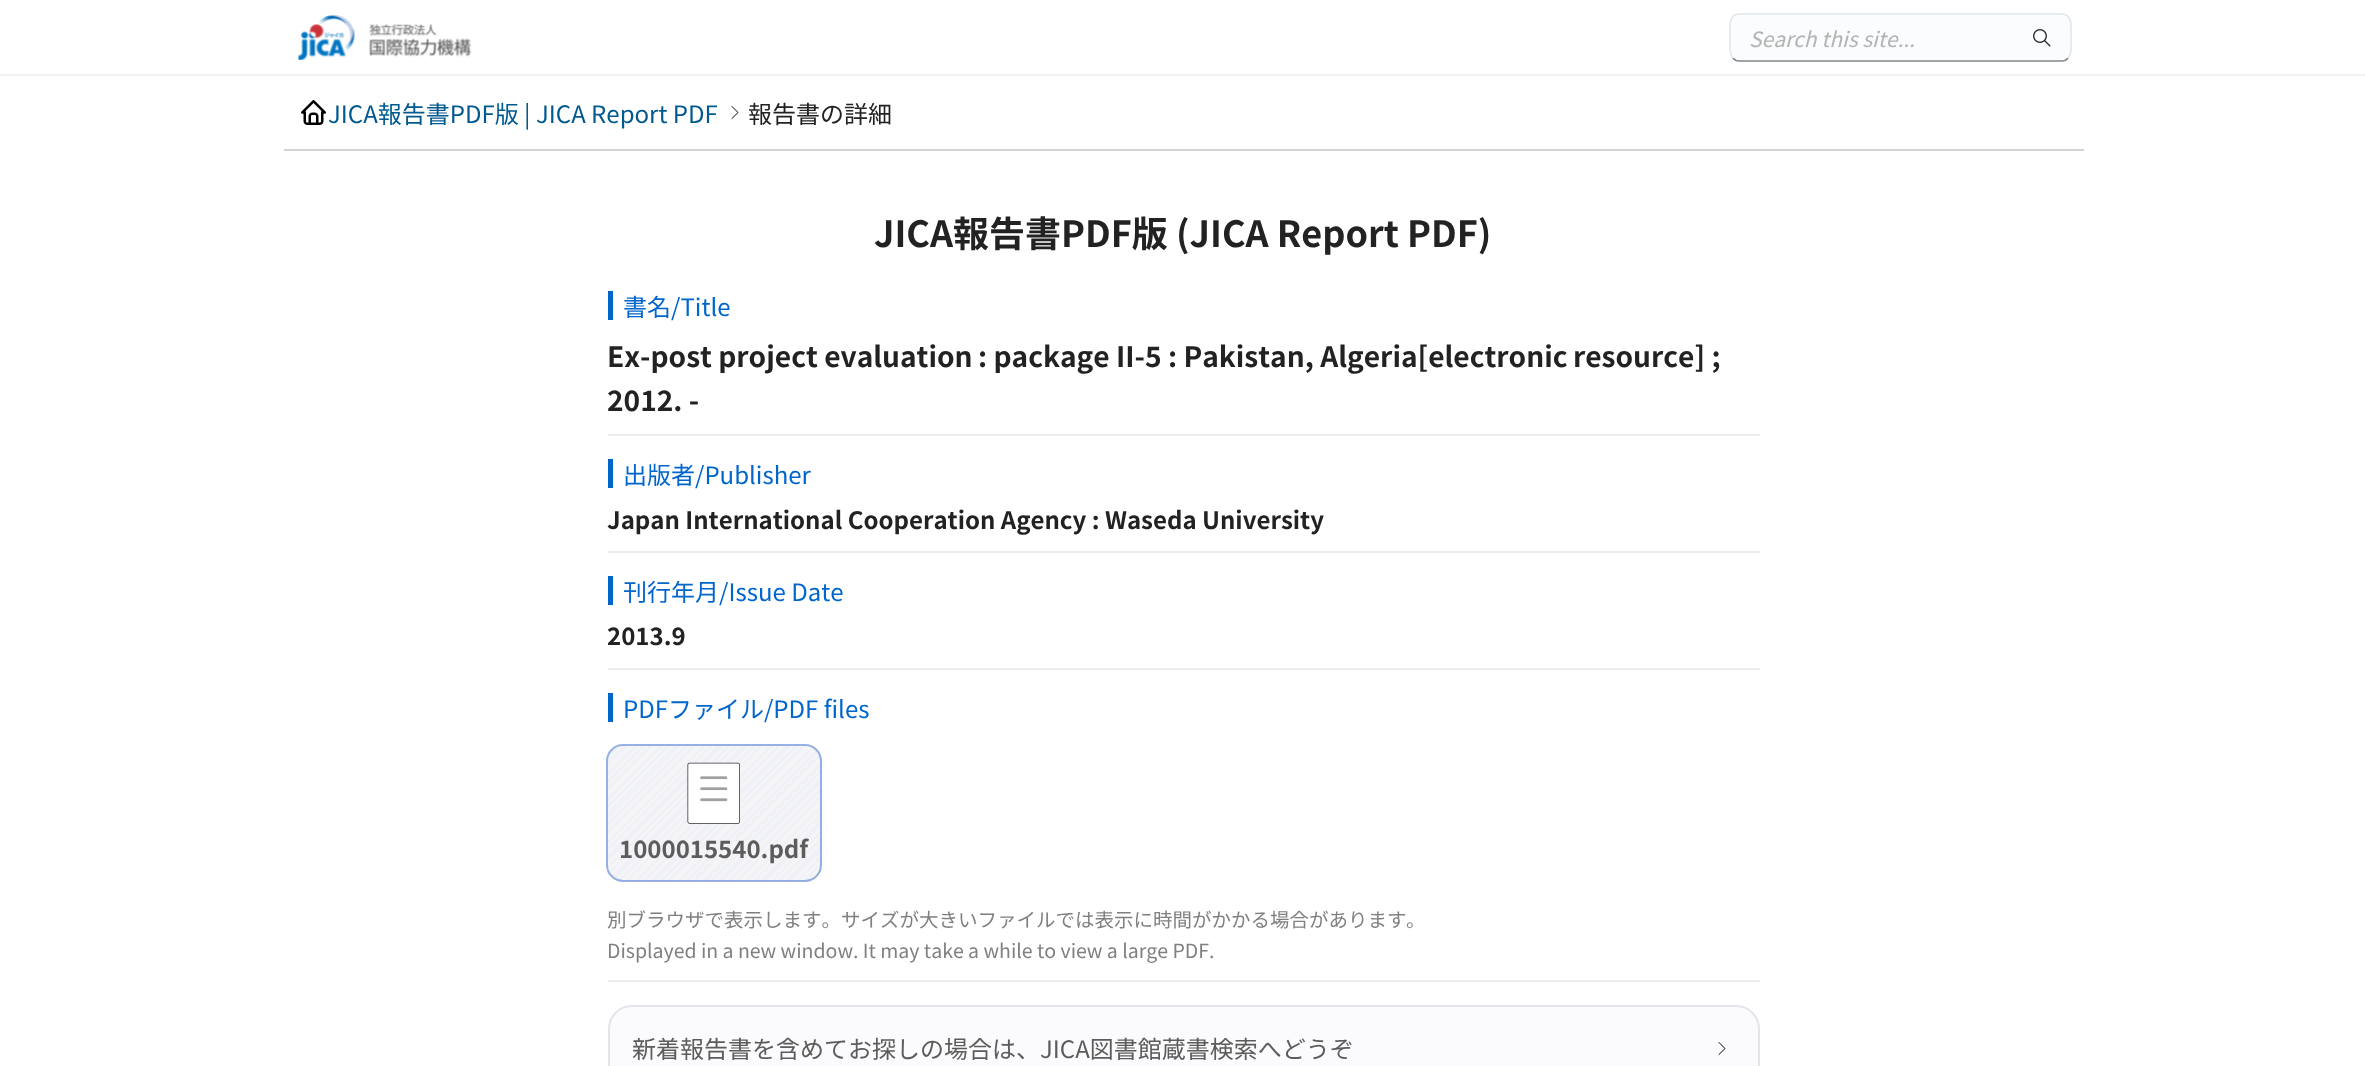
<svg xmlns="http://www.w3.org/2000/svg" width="2365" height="1066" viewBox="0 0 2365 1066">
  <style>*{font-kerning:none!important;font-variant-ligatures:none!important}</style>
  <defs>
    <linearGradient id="g1" gradientUnits="userSpaceOnUse" x1="801" y1="900" x2="623" y2="722"><stop offset="0" stop-color="#f5f5f5"/><stop offset="0.01" stop-color="#f5f5f5"/><stop offset="0.01" stop-color="#f0f0f8"/><stop offset="0.02" stop-color="#f0f0f8"/><stop offset="0.02" stop-color="#f5f5f5"/><stop offset="0.04" stop-color="#f5f5f5"/><stop offset="0.04" stop-color="#f0f0f8"/><stop offset="0.05" stop-color="#f0f0f8"/><stop offset="0.05" stop-color="#f5f5f5"/><stop offset="0.06" stop-color="#f5f5f5"/><stop offset="0.06" stop-color="#f0f0f8"/><stop offset="0.07" stop-color="#f0f0f8"/><stop offset="0.07" stop-color="#f5f5f5"/><stop offset="0.08" stop-color="#f5f5f5"/><stop offset="0.08" stop-color="#f0f0f8"/><stop offset="0.1" stop-color="#f0f0f8"/><stop offset="0.1" stop-color="#f5f5f5"/><stop offset="0.11" stop-color="#f5f5f5"/><stop offset="0.11" stop-color="#f0f0f8"/><stop offset="0.12" stop-color="#f0f0f8"/><stop offset="0.12" stop-color="#f5f5f5"/><stop offset="0.13" stop-color="#f5f5f5"/><stop offset="0.13" stop-color="#f0f0f8"/><stop offset="0.14" stop-color="#f0f0f8"/><stop offset="0.14" stop-color="#f5f5f5"/><stop offset="0.15" stop-color="#f5f5f5"/><stop offset="0.15" stop-color="#f0f0f8"/><stop offset="0.17" stop-color="#f0f0f8"/><stop offset="0.17" stop-color="#f5f5f5"/><stop offset="0.18" stop-color="#f5f5f5"/><stop offset="0.18" stop-color="#f0f0f8"/><stop offset="0.19" stop-color="#f0f0f8"/><stop offset="0.19" stop-color="#f5f5f5"/><stop offset="0.2" stop-color="#f5f5f5"/><stop offset="0.2" stop-color="#f0f0f8"/><stop offset="0.21" stop-color="#f0f0f8"/><stop offset="0.21" stop-color="#f5f5f5"/><stop offset="0.23" stop-color="#f5f5f5"/><stop offset="0.23" stop-color="#f0f0f8"/><stop offset="0.24" stop-color="#f0f0f8"/><stop offset="0.24" stop-color="#f5f5f5"/><stop offset="0.25" stop-color="#f5f5f5"/><stop offset="0.25" stop-color="#f0f0f8"/><stop offset="0.26" stop-color="#f0f0f8"/><stop offset="0.26" stop-color="#f5f5f5"/><stop offset="0.27" stop-color="#f5f5f5"/><stop offset="0.27" stop-color="#f0f0f8"/><stop offset="0.29" stop-color="#f0f0f8"/><stop offset="0.29" stop-color="#f5f5f5"/><stop offset="0.3" stop-color="#f5f5f5"/><stop offset="0.3" stop-color="#f0f0f8"/><stop offset="0.31" stop-color="#f0f0f8"/><stop offset="0.31" stop-color="#f5f5f5"/><stop offset="0.32" stop-color="#f5f5f5"/><stop offset="0.32" stop-color="#f0f0f8"/><stop offset="0.33" stop-color="#f0f0f8"/><stop offset="0.33" stop-color="#f5f5f5"/><stop offset="0.35" stop-color="#f5f5f5"/><stop offset="0.35" stop-color="#f0f0f8"/><stop offset="0.36" stop-color="#f0f0f8"/><stop offset="0.36" stop-color="#f5f5f5"/><stop offset="0.37" stop-color="#f5f5f5"/><stop offset="0.37" stop-color="#f0f0f8"/><stop offset="0.38" stop-color="#f0f0f8"/><stop offset="0.38" stop-color="#f5f5f5"/><stop offset="0.39" stop-color="#f5f5f5"/><stop offset="0.39" stop-color="#f0f0f8"/><stop offset="0.4" stop-color="#f0f0f8"/><stop offset="0.4" stop-color="#f5f5f5"/><stop offset="0.42" stop-color="#f5f5f5"/><stop offset="0.42" stop-color="#f0f0f8"/><stop offset="0.43" stop-color="#f0f0f8"/><stop offset="0.43" stop-color="#f5f5f5"/><stop offset="0.44" stop-color="#f5f5f5"/><stop offset="0.44" stop-color="#f0f0f8"/><stop offset="0.45" stop-color="#f0f0f8"/><stop offset="0.45" stop-color="#f5f5f5"/><stop offset="0.46" stop-color="#f5f5f5"/><stop offset="0.46" stop-color="#f0f0f8"/><stop offset="0.48" stop-color="#f0f0f8"/><stop offset="0.48" stop-color="#f5f5f5"/><stop offset="0.49" stop-color="#f5f5f5"/><stop offset="0.49" stop-color="#f0f0f8"/><stop offset="0.5" stop-color="#f0f0f8"/><stop offset="0.5" stop-color="#f5f5f5"/><stop offset="0.51" stop-color="#f5f5f5"/><stop offset="0.51" stop-color="#f0f0f8"/><stop offset="0.52" stop-color="#f0f0f8"/><stop offset="0.52" stop-color="#f5f5f5"/><stop offset="0.54" stop-color="#f5f5f5"/><stop offset="0.54" stop-color="#f0f0f8"/><stop offset="0.55" stop-color="#f0f0f8"/><stop offset="0.55" stop-color="#f5f5f5"/><stop offset="0.56" stop-color="#f5f5f5"/><stop offset="0.56" stop-color="#f0f0f8"/><stop offset="0.57" stop-color="#f0f0f8"/><stop offset="0.57" stop-color="#f5f5f5"/><stop offset="0.58" stop-color="#f5f5f5"/><stop offset="0.58" stop-color="#f0f0f8"/><stop offset="0.6" stop-color="#f0f0f8"/><stop offset="0.6" stop-color="#f5f5f5"/><stop offset="0.61" stop-color="#f5f5f5"/><stop offset="0.61" stop-color="#f0f0f8"/><stop offset="0.62" stop-color="#f0f0f8"/><stop offset="0.62" stop-color="#f5f5f5"/><stop offset="0.63" stop-color="#f5f5f5"/><stop offset="0.63" stop-color="#f0f0f8"/><stop offset="0.64" stop-color="#f0f0f8"/><stop offset="0.64" stop-color="#f5f5f5"/><stop offset="0.65" stop-color="#f5f5f5"/><stop offset="0.65" stop-color="#f0f0f8"/><stop offset="0.67" stop-color="#f0f0f8"/><stop offset="0.67" stop-color="#f5f5f5"/><stop offset="0.68" stop-color="#f5f5f5"/><stop offset="0.68" stop-color="#f0f0f8"/><stop offset="0.69" stop-color="#f0f0f8"/><stop offset="0.69" stop-color="#f5f5f5"/><stop offset="0.7" stop-color="#f5f5f5"/><stop offset="0.7" stop-color="#f0f0f8"/><stop offset="0.71" stop-color="#f0f0f8"/><stop offset="0.71" stop-color="#f5f5f5"/><stop offset="0.73" stop-color="#f5f5f5"/><stop offset="0.73" stop-color="#f0f0f8"/><stop offset="0.74" stop-color="#f0f0f8"/><stop offset="0.74" stop-color="#f5f5f5"/><stop offset="0.75" stop-color="#f5f5f5"/><stop offset="0.75" stop-color="#f0f0f8"/><stop offset="0.76" stop-color="#f0f0f8"/><stop offset="0.76" stop-color="#f5f5f5"/><stop offset="0.77" stop-color="#f5f5f5"/><stop offset="0.77" stop-color="#f0f0f8"/><stop offset="0.79" stop-color="#f0f0f8"/><stop offset="0.79" stop-color="#f5f5f5"/><stop offset="0.8" stop-color="#f5f5f5"/><stop offset="0.8" stop-color="#f0f0f8"/><stop offset="0.81" stop-color="#f0f0f8"/><stop offset="0.81" stop-color="#f5f5f5"/><stop offset="0.82" stop-color="#f5f5f5"/><stop offset="0.82" stop-color="#f0f0f8"/><stop offset="0.83" stop-color="#f0f0f8"/><stop offset="0.83" stop-color="#f5f5f5"/><stop offset="0.85" stop-color="#f5f5f5"/><stop offset="0.85" stop-color="#f0f0f8"/><stop offset="0.86" stop-color="#f0f0f8"/><stop offset="0.86" stop-color="#f5f5f5"/><stop offset="0.87" stop-color="#f5f5f5"/><stop offset="0.87" stop-color="#f0f0f8"/><stop offset="0.88" stop-color="#f0f0f8"/><stop offset="0.88" stop-color="#f5f5f5"/><stop offset="0.89" stop-color="#f5f5f5"/><stop offset="0.89" stop-color="#f0f0f8"/><stop offset="0.9" stop-color="#f0f0f8"/><stop offset="0.9" stop-color="#f5f5f5"/><stop offset="0.92" stop-color="#f5f5f5"/><stop offset="0.92" stop-color="#f0f0f8"/><stop offset="0.93" stop-color="#f0f0f8"/><stop offset="0.93" stop-color="#f5f5f5"/><stop offset="0.94" stop-color="#f5f5f5"/><stop offset="0.94" stop-color="#f0f0f8"/><stop offset="0.95" stop-color="#f0f0f8"/><stop offset="0.95" stop-color="#f5f5f5"/><stop offset="0.96" stop-color="#f5f5f5"/><stop offset="0.96" stop-color="#f0f0f8"/><stop offset="0.98" stop-color="#f0f0f8"/><stop offset="0.98" stop-color="#f5f5f5"/><stop offset="0.99" stop-color="#f5f5f5"/><stop offset="0.99" stop-color="#f0f0f8"/><stop offset="1" stop-color="#f0f0f8"/></linearGradient>
  </defs>
  <rect width="100%" height="100%" fill="#fff"/>
  <path d="M0 74h2365v2H0z" fill="#f2f2f2"/>
  <image x="298" y="15" width="174" height="45" href="img/1.png"/>
  <rect x="1730" y="14" width="342" height="48" rx="9" fill="#fafcfd"/>
  <path d="M2068 58C2066.5 60 2064 61 2062 61H1739C1737 61 1734.5 60 1733 58" fill="none" stroke="#84878a" stroke-width="1.5"/>
  <path d="M1733 58C1730 55 1730 51 1730 47V32.5C1730 26 1728.5 14.5 1739 14H2062C2072.5 14.5 2071 26 2071 32.5V47C2071 51 2071 55 2068 58" fill="none" stroke="#e0e6ea" stroke-width="1.5"/>
  <image x="2033" y="29" width="18" height="18" href="img/2.png"/>
  <path d="M284 149h1800v2H284z" fill="#d3d3d3"/>
  <image x="301" y="100" width="25" height="25" href="img/3.png"/>
  <path d="M732 106.5L738 112.5L732 118.5" fill="none" stroke="#000" stroke-linecap="round" stroke-linejoin="round"/>
  <path d="M608 434h1152v2H608z" fill="#ececec"/>
  <path d="M608 291h5v29H608z" fill="#06c"/>
  <path d="M608 551h1152v2H608z" fill="#ececec"/>
  <path d="M608 459h5v29H608z" fill="#06c"/>
  <path d="M608 668h1152v2H608z" fill="#ececec"/>
  <path d="M608 576h5v29H608z" fill="#06c"/>
  <path d="M608 693h5v29H608z" fill="#06c"/>
  <rect x="608" y="746" width="213" height="135" rx="15" fill="url(#g1)"/>
  <rect x="607" y="745" width="214" height="136" rx="16" fill="none" stroke="#3264c980" stroke-width="2"/>
  <image x="687" y="762" width="53" height="62" href="img/4.png"/>
  <path d="M608 980h1152v2H608z" fill="#ececec"/>
  <rect x="608" y="1005" width="1152" height="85" rx="24" fill="#fbfbfd"/>
  <path d="M1719 1042.5L1725 1048.5L1719 1054.5" fill="none" stroke="#000" stroke-linecap="round" stroke-linejoin="round"/>
  <rect x="609" y="1006" width="1150" height="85" rx="23" fill="none" stroke="#e2e5ea" stroke-width="2"/>
  <text x="1749" y="47" font-family="Noto Sans JP" font-size="21" font-style="italic" fill="#b3b3b3">Search this site...</text>
  <text x="328" y="123" font-family="Noto Sans JP" font-size="24" fill="#00598f">JICA報告書PDF版 | JICA Report PDF</text>
  <text x="748" y="123" font-family="Noto Sans JP" font-size="24" fill="#222">報告書の詳細</text>
  <text x="874" y="247" font-family="Noto Sans JP" font-size="36" font-weight="bold" fill="#222">JICA報告書PDF版 (JICA Report PDF)</text>
  <text x="623" y="316" font-family="Noto Sans JP" font-size="24" fill="#06c">書名/Title</text>
  <g font-family="Noto Sans JP" font-size="28.1" font-weight="bold" fill="#222">
    <text x="607" y="367">Ex-post project evaluation</text>
    <text x="978" y="367">: package II-5 : Pakistan, Algeria[electronic</text>
    <text x="1573" y="367">resource] ;</text>
    <text x="607" y="411">2012. -</text>
  </g>
  <text x="623" y="484" font-family="Noto Sans JP" font-size="24" fill="#06c">出版者/Publisher</text>
  <text x="607" y="529" font-family="Noto Sans JP" font-size="24" font-weight="bold" fill="#222">Japan International Cooperation Agency : Waseda University</text>
  <text x="623" y="601" font-family="Noto Sans JP" font-size="24" fill="#06c">刊行年月/Issue Date</text>
  <text x="607" y="645" font-family="Noto Sans JP" font-size="24" font-weight="bold" fill="#222">2013.9</text>
  <text x="623" y="718" font-family="Noto Sans JP" font-size="24" fill="#06c">PDFファイル/PDF files</text>
  <text x="619" y="858" font-family="Noto Sans JP" font-size="24" font-weight="bold" fill="#5c5c5c">1000015540.pdf</text>
  <g font-family="Noto Sans JP" font-size="19.5" fill="#808080">
    <text x="607" y="927">別ブラウザで表示します。サイズが大きいファイルでは表示に時間がかかる場合があります</text>
    <text x="1406" y="927">。</text>
    <text x="607" y="958">Displayed in a new window. It may take a while to view a large PDF.</text>
  </g>
  <text x="632" y="1058" font-family="Noto Sans JP" font-size="24" fill="#5c5c5c">新着報告書を含めてお探しの場合は、JICA図書館蔵書検索へどうぞ</text>
</svg>
